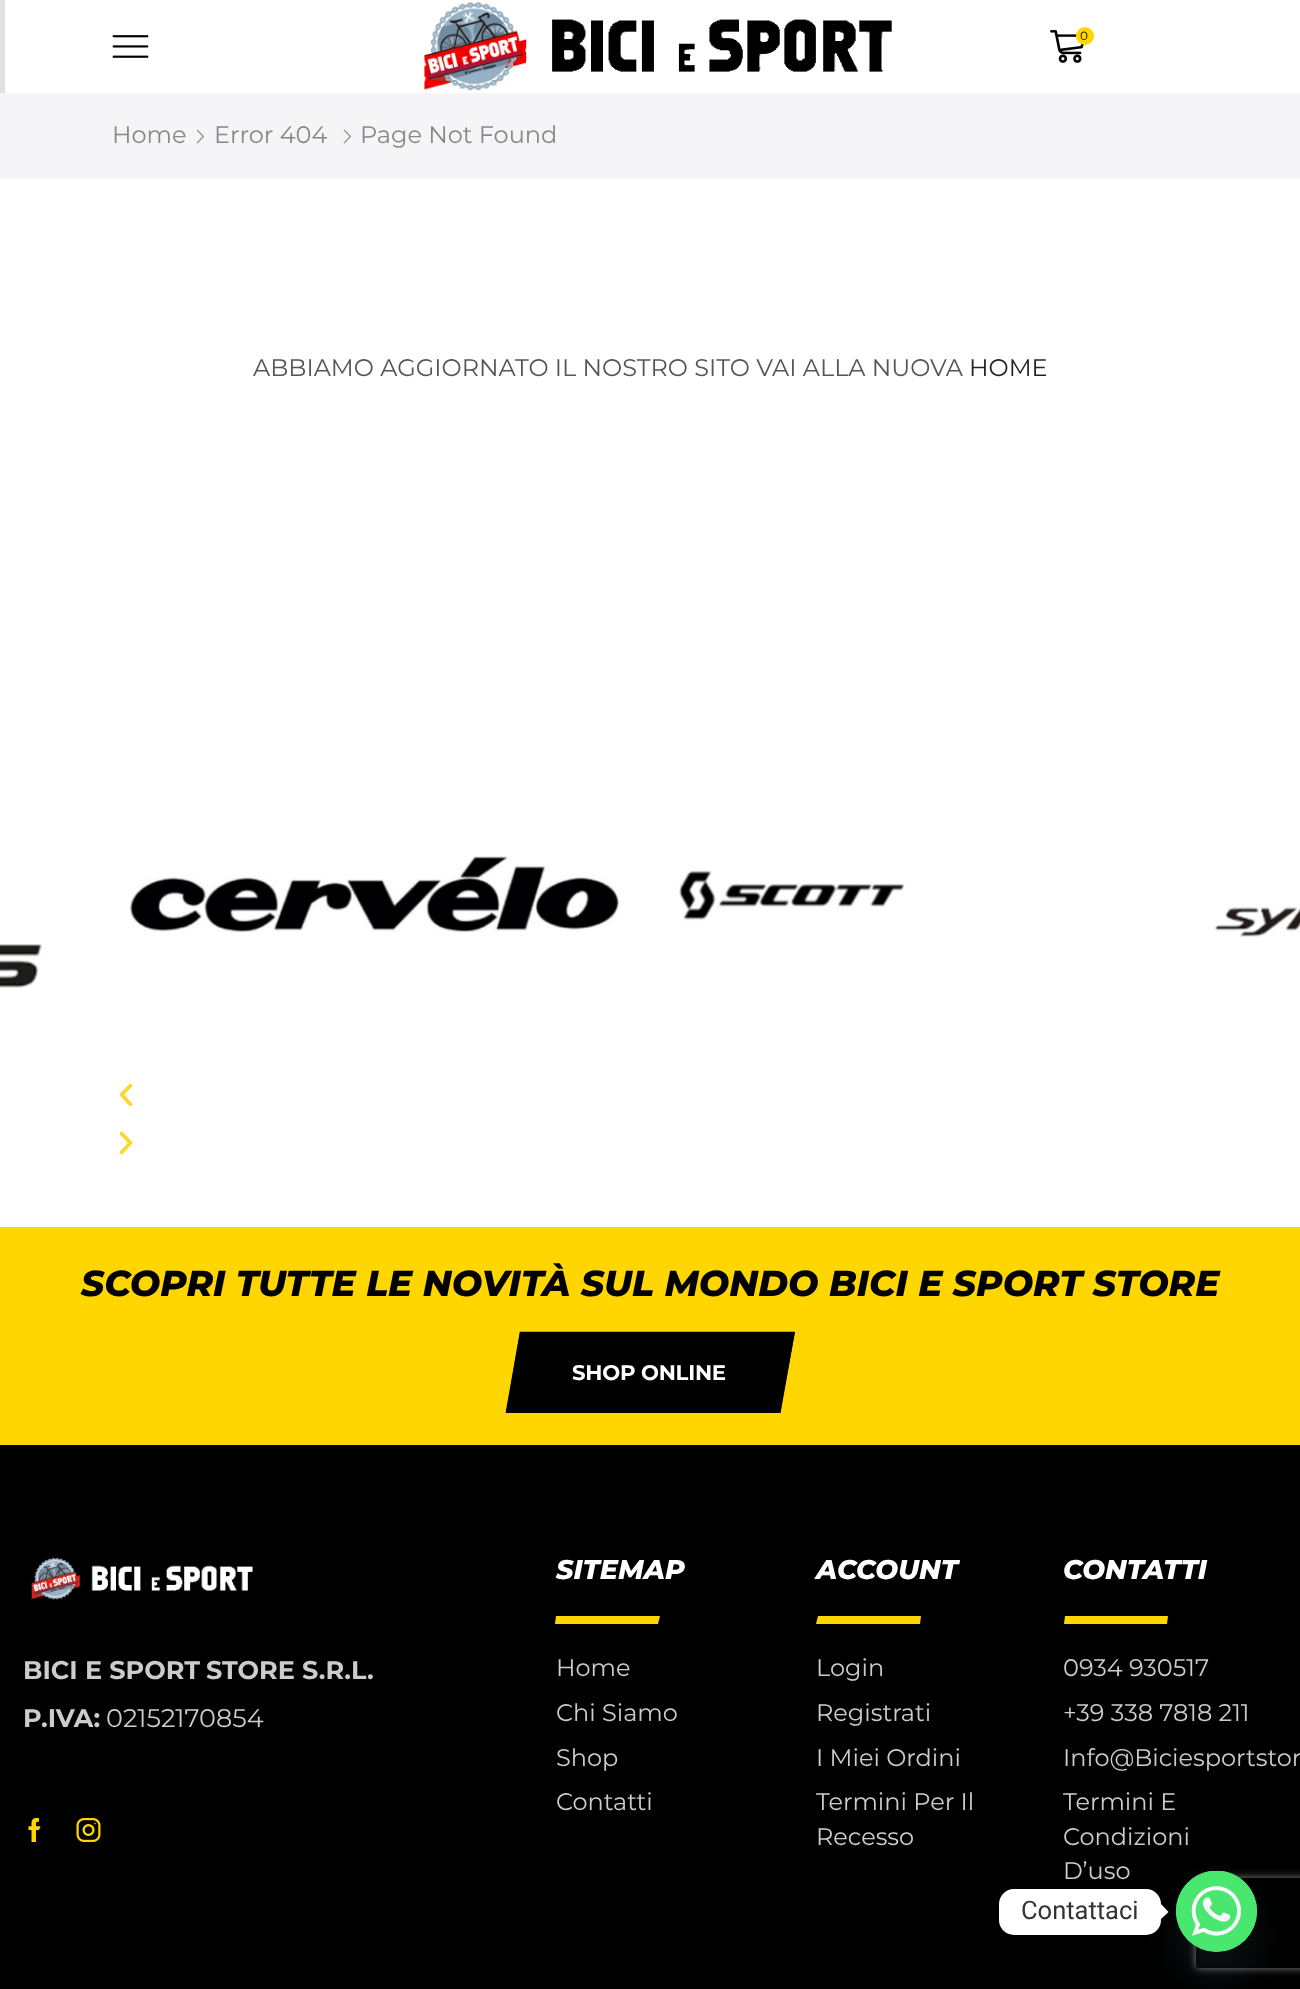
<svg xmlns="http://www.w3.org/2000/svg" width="1300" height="1989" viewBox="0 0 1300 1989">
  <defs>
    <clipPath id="clip1"><path d="M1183 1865H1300V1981H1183ZM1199 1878H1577C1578.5 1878 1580 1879.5 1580 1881V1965C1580 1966.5 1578.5 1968 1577 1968H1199C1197.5 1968 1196 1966.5 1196 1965V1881C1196 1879.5 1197.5 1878 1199 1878Z" clip-rule="evenodd"/></clipPath>
  </defs>
  <rect width="100%" height="100%" fill="#fff"/>
  <path d="M0 0h5v93H0z" fill="#e1e1e1"/>
  <image x="112" y="35" width="37" height="23" href="img/1.png"/>
  <image x="424" y="0" width="476" height="91" href="img/2.png"/>
  <image x="1050" y="30" width="34" height="33" href="img/3.png"/>
  <circle cx="1085" cy="36" r="9" fill="#ffd600"/>
  <path d="M0 93h1300v86H0z" fill="#f5f5f7"/>
  <image x="196" y="129" width="8" height="15" href="img/4.png"/>
  <image x="343" y="129" width="8" height="15" href="img/4.png"/>
  <image x="129" y="856" width="491" height="77" href="img/5.png"/>
  <image x="679" y="870" width="226" height="51" href="img/6.png"/>
  <image x="1214" y="906" width="86" height="31" href="img/7.png"/>
  <image x="0" y="944" width="42" height="44" href="img/8.png"/>
  <image x="119" y="1083" width="14" height="24" href="img/9.png"/>
  <image x="119" y="1131" width="14" height="24" href="img/10.png"/>
  <path d="M0 1227h1300v218H0z" fill="#ffd600"/>
  <path d="M520 1332H795L780 1413H506Z" fill="#000"/>
  <path d="M520.5 1332.5H794L780 1412H506.5Z" fill="none" stroke="#000" stroke-width="1.5"/>
  <path d="M0 1445h1300v544H0z" fill="#000"/>
  <image x="31" y="1557" width="222" height="43" href="img/11.png"/>
  <image x="28" y="1818" width="13" height="24" href="img/12.png"/>
  <image x="76" y="1818" width="25" height="24" href="img/13.png"/>
  <path d="M556 1616H660L658 1624H555Z" fill="#ffd600"/>
  <path d="M818 1616H921L920 1624H816Z" fill="#ffd600"/>
  <path d="M1065 1616H1168L1167 1624H1064Z" fill="#ffd600"/>
  <rect x="1176" y="1895" width="81" height="81" rx="40.5" fill="#49687e29" filter="blur(18px)"/>
  <rect x="999" y="1889" width="162" height="46" rx="15" fill="#fff"/>
  <path d="M1161 1919V1904L1168.5 1912Z" fill="#fff"/>
  <g clip-path="url(#clip1)">
    <rect x="1196" y="1878" width="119" height="90" rx="3" fill="#808080" filter="blur(4px)"/>
  </g>
  <circle cx="1216.5" cy="1911.5" r="40.5" fill="#49e670"/>
  <image x="1176" y="1871" width="81" height="81" href="img/14.png"/>
  <text x="1080" y="40" font-family="Montserrat" font-size="12" fill="#000">0</text>
  <g font-family="Montserrat" font-size="24" fill="#888">
    <text x="112" y="143">Home</text>
    <text x="214" y="143">Error 404</text>
    <text x="360" y="143">Page Not Found</text>
  </g>
  <text x="253" y="376" font-family="Montserrat" font-size="24" fill="#555">ABBIAMO AGGIORNATO IL NOSTRO SITO VAI ALLA NUOVA</text>
  <text x="969" y="376" font-family="Montserrat" font-size="24" fill="#222">HOME</text>
  <text x="81" y="1296" font-family="Montserrat" font-size="36" font-weight="800" font-style="italic" fill="#000">SCOPRI TUTTE LE NOVITÀ SUL MONDO BICI E SPORT STORE</text>
  <text x="572" y="1380" font-family="Montserrat" font-size="21.25" font-weight="bold" letter-spacing="-0.25" fill="#fff">SHOP ONLINE</text>
  <g font-family="Montserrat" font-size="25.5" font-weight="bold" fill="#ccc">
    <text x="23" y="1679">BICI E SPORT</text>
    <text x="206" y="1679">STORE</text>
    <text x="302" y="1679">S.R.L.</text>
    <text x="23" y="1727">P.IVA:</text>
  </g>
  <text x="106" y="1727" font-family="Montserrat" font-size="25.5" fill="#ccc">02152170854</text>
  <text x="556" y="1579" font-family="Montserrat" font-size="27" font-weight="800" font-style="italic" fill="#fff">SITEMAP</text>
  <g font-family="Montserrat" font-size="24" fill="#ccc">
    <text x="556" y="1676">Home</text>
    <text x="556" y="1721">Chi Siamo</text>
    <text x="556" y="1766">Shop</text>
    <text x="556" y="1810">Contatti</text>
  </g>
  <text x="816" y="1579" font-family="Montserrat" font-size="27" font-weight="800" font-style="italic" fill="#fff">ACCOUNT</text>
  <g font-family="Montserrat" font-size="24" fill="#ccc">
    <text x="816" y="1676">Login</text>
    <text x="816" y="1721">Registrati</text>
    <text x="816" y="1766">I Miei Ordini</text>
    <text x="816" y="1810">Termini Per Il</text>
    <text x="816" y="1845">Recesso</text>
  </g>
  <text x="1063" y="1579" font-family="Montserrat" font-size="27" font-weight="800" font-style="italic" fill="#fff">CONTATTI</text>
  <g font-family="Montserrat" font-size="24" fill="#ccc">
    <text x="1063" y="1676">0934 930517</text>
    <text x="1063" y="1721">+39 338 7818 211</text>
    <text x="1063" y="1766">Info@Biciesportstor</text>
    <text x="1063" y="1810">Termini E</text>
    <text x="1063" y="1845">Condizioni</text>
    <text x="1063" y="1879">D’uso</text>
  </g>
  <text x="1021" y="1919" font-family="Roboto" font-size="25.5" fill="#333">Contattaci</text>
</svg>
